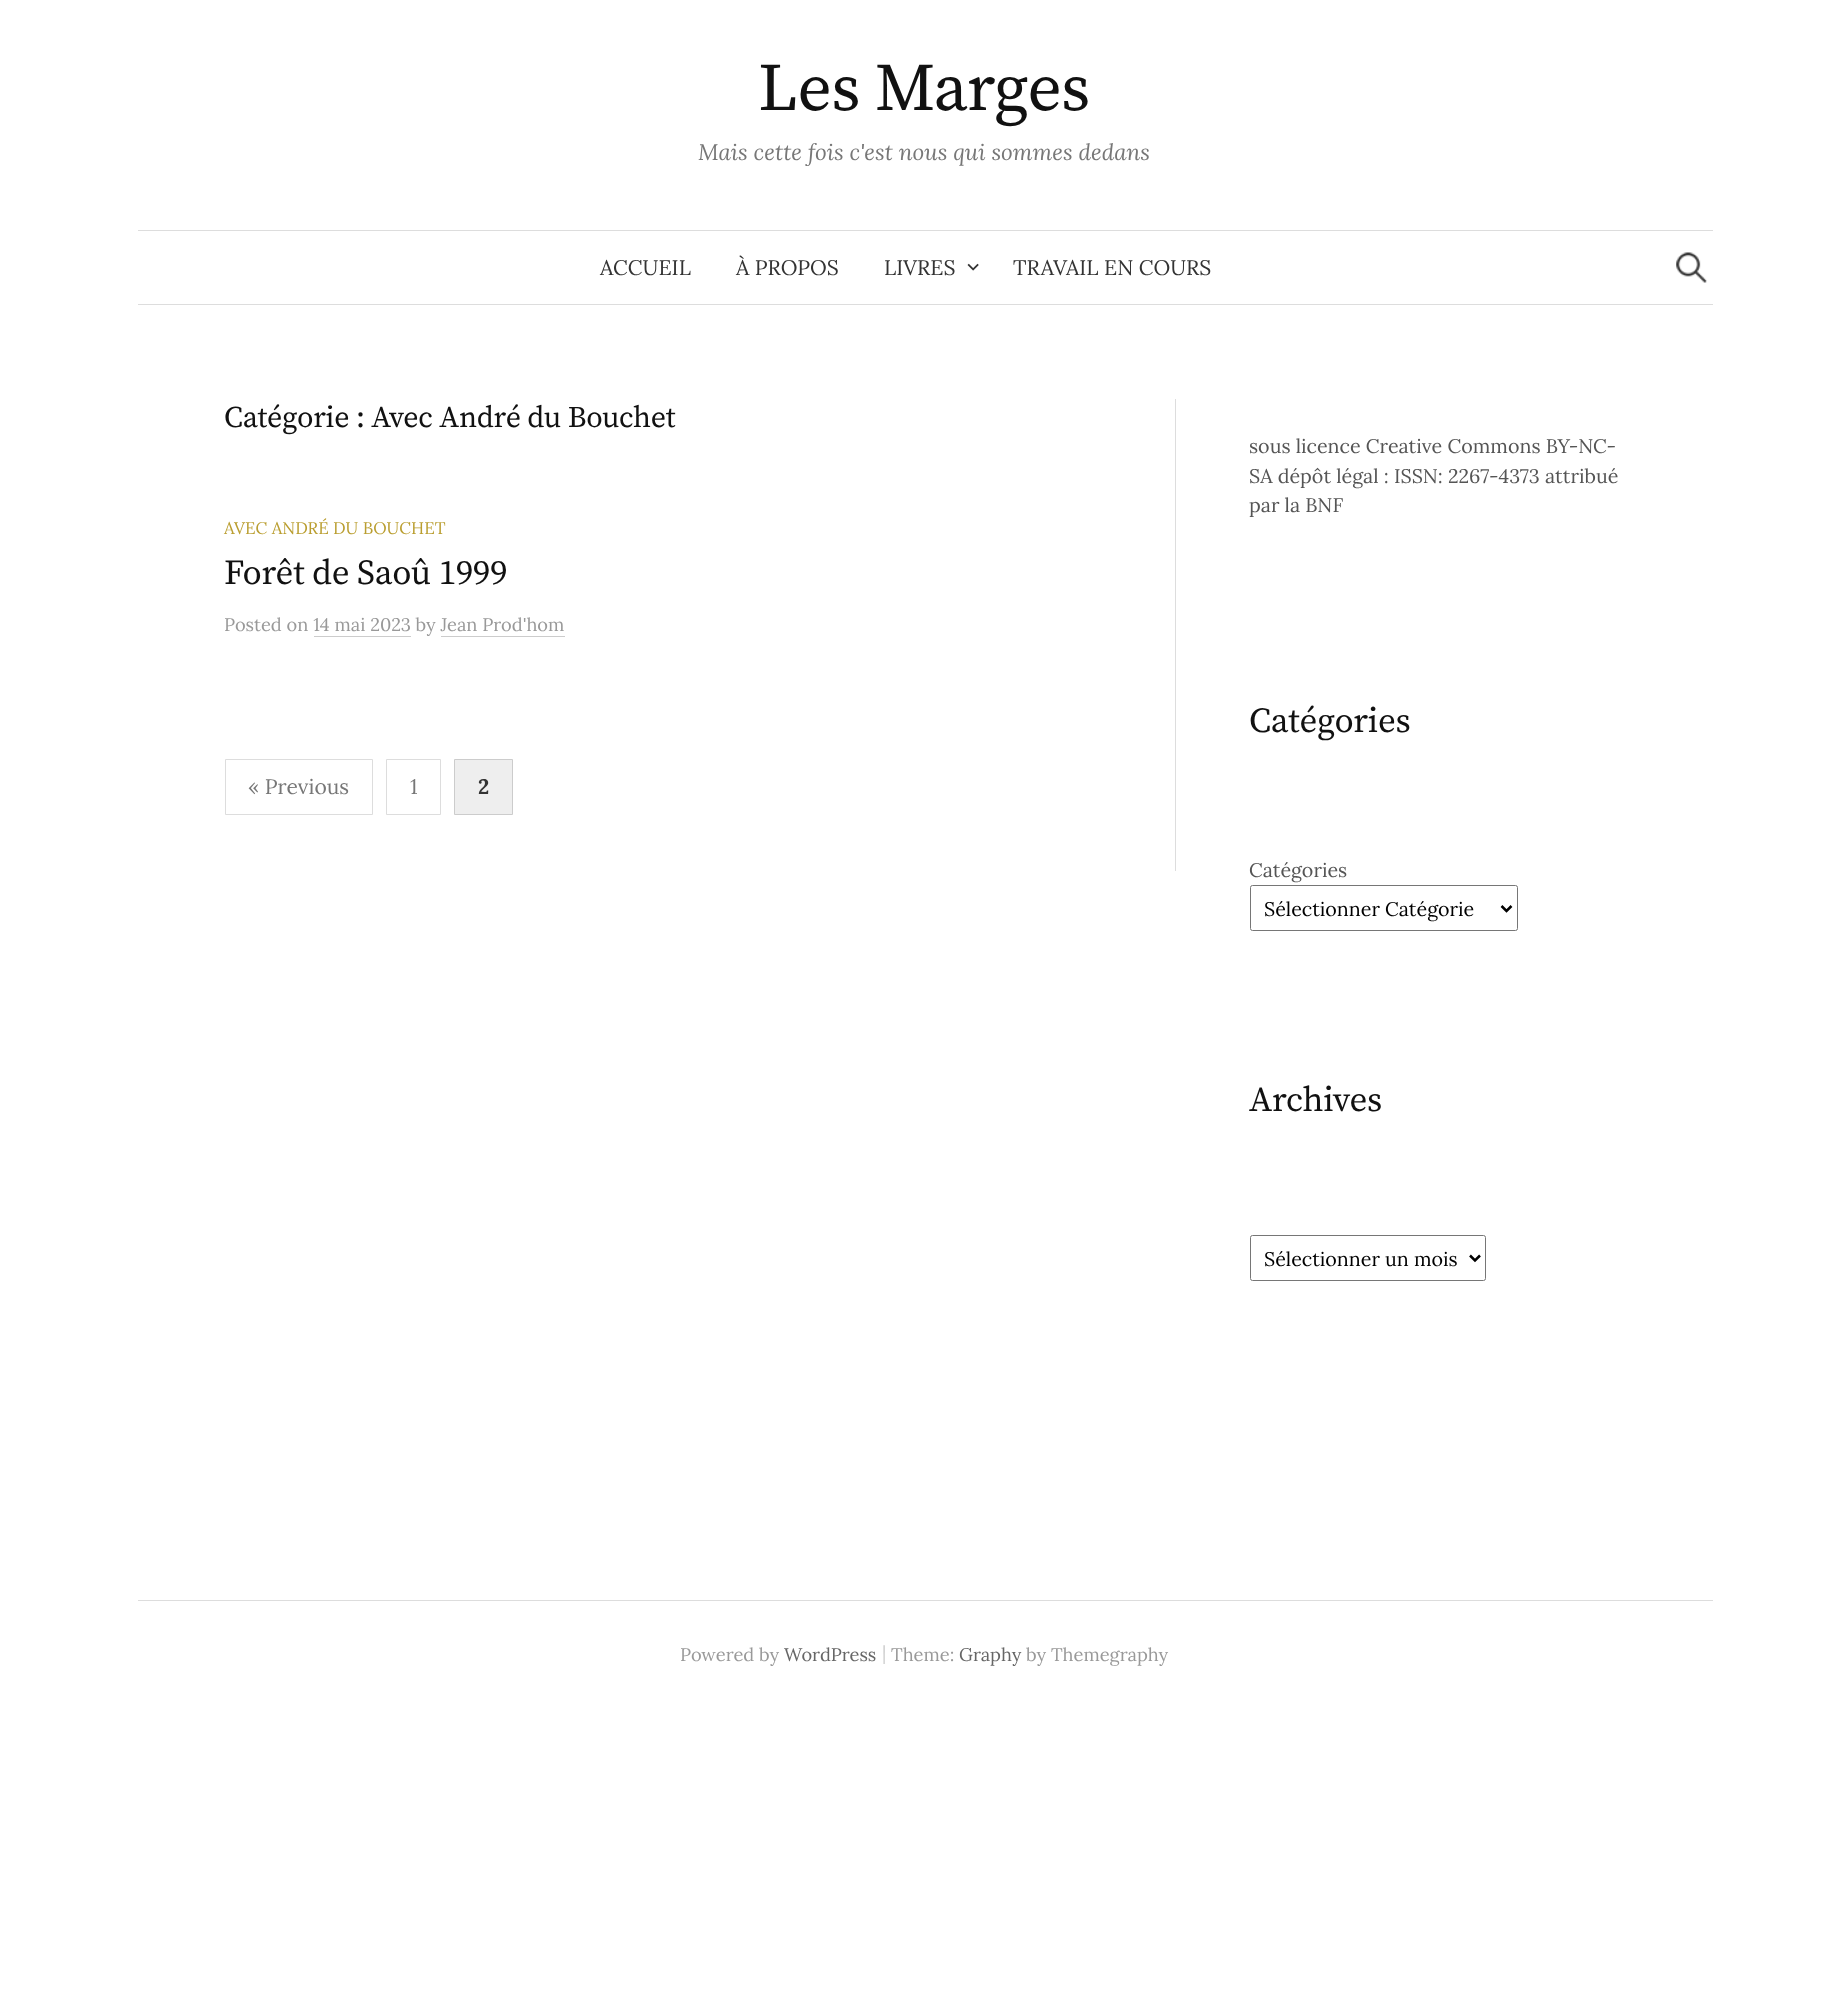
<svg xmlns="http://www.w3.org/2000/svg" width="1848" height="2014" viewBox="0 0 1848 2014">
  <rect width="100%" height="100%" fill="#fff"/>
  <path d="M138 230h1575v1H138z" fill="#ddd"/>
  <path d="M138 304h1575v1H138z" fill="#ddd"/>
  <image x="967" y="263" width="12" height="8" href="img/1.png"/>
  <image x="1676" y="252" width="31" height="31" href="img/2.png"/>
  <path d="M1175 399h1v472H1175z" fill="#ddd"/>
  <path d="M314 636h97v1H314z" fill="#ccc"/>
  <path d="M441 636h124v1H441z" fill="#ccc"/>
  <path d="M225.5 759.5h147v55H225.5z" fill="none" stroke="#ddd"/>
  <path d="M386.5 759.5h54v55H386.5z" fill="none" stroke="#ddd"/>
  <path d="M454.5 759.5h58v55H454.5z" fill="#eee" stroke="#ccc"/>
  <rect x="1250.5" y="885.5" width="267" height="45" rx="2" fill="none" stroke="#767676"/>
  <path d="M1501.5 906L1506.5 911L1511.5 906" fill="none" stroke="#000" stroke-width="2.5"/>
  <rect x="1250.5" y="1235.5" width="235" height="45" rx="2" fill="none" stroke="#767676"/>
  <path d="M1470 1255.5L1475 1260.5L1480 1255.5" fill="none" stroke="#000" stroke-width="2.5"/>
  <path d="M138 1600h1575v1H138z" fill="#ddd"/>
  <text x="758" y="110" font-family="Source Serif Pro" font-size="67.5" letter-spacing="-0.75" fill="#111">Les Marges</text>
  <text x="698" y="160" font-family="Lora" font-size="22.5" font-style="italic" fill="#777">Mais cette fois c'est nous qui sommes dedans</text>
  <g font-family="Lora" font-size="21.1" fill="#333">
    <text x="600" y="275">ACCUEIL</text>
    <text x="736" y="275">À PROPOS</text>
    <text x="884" y="275">LIVRES</text>
    <text x="1013" y="275">TRAVAIL EN COURS</text>
  </g>
  <text x="224" y="427" font-family="Source Serif Pro" font-size="30" letter-spacing="-0.3" fill="#111">Catégorie : Avec André du Bouchet</text>
  <text x="224" y="534" font-family="Lora" font-size="16.9" fill="#ba9e30">AVEC ANDRÉ DU BOUCHET</text>
  <text x="224" y="584" font-family="Source Serif Pro" font-size="35" letter-spacing="-0.3" fill="#111">Forêt de Saoû 1999</text>
  <text x="224" y="631" font-family="Lora" font-size="18.25" fill="#999">Posted on 14 mai 2023 by Jean Prod'hom</text>
  <g font-family="Lora" font-size="21.1" fill="#777">
    <text x="248" y="794">« Previous</text>
    <text x="410" y="794">1</text>
  </g>
  <text x="478" y="794" font-family="Lora" font-size="21.1" font-weight="bold" fill="#333">2</text>
  <g font-family="Lora" font-size="19.7" fill="#555">
    <text x="1249" y="453">sous licence Creative Commons BY-NC-</text>
    <text x="1249" y="483">SA dépôt légal : ISSN: 2267-4373 attribué</text>
    <text x="1249" y="512">par la BNF</text>
  </g>
  <text x="1249" y="732" font-family="Source Serif Pro" font-size="35" letter-spacing="-0.3" fill="#111">Catégories</text>
  <text x="1249" y="877" font-family="Lora" font-size="19.7" fill="#555">Catégories</text>
  <text x="1264" y="916" font-family="Lora" font-size="19.7" fill="#000">Sélectionner Catégorie</text>
  <text x="1249" y="1111" font-family="Source Serif Pro" font-size="35" letter-spacing="-0.3" fill="#111">Archives</text>
  <text x="1264" y="1266" font-family="Lora" font-size="19.7" fill="#000">Sélectionner un mois</text>
  <text x="680" y="1661" font-family="Lora" font-size="18.25" fill="#999">Powered by</text>
  <text x="784" y="1661" font-family="Lora" font-size="18.25" fill="#666">WordPress</text>
  <text x="882" y="1659" font-family="Lora" font-size="18.25" fill="#ccc">|</text>
  <text x="891" y="1661" font-family="Lora" font-size="18.25" fill="#999">Theme:</text>
  <text x="959" y="1661" font-family="Lora" font-size="18.25" fill="#666">Graphy</text>
  <text x="1026" y="1661" font-family="Lora" font-size="18.25" fill="#999">by Themegraphy</text>
</svg>
